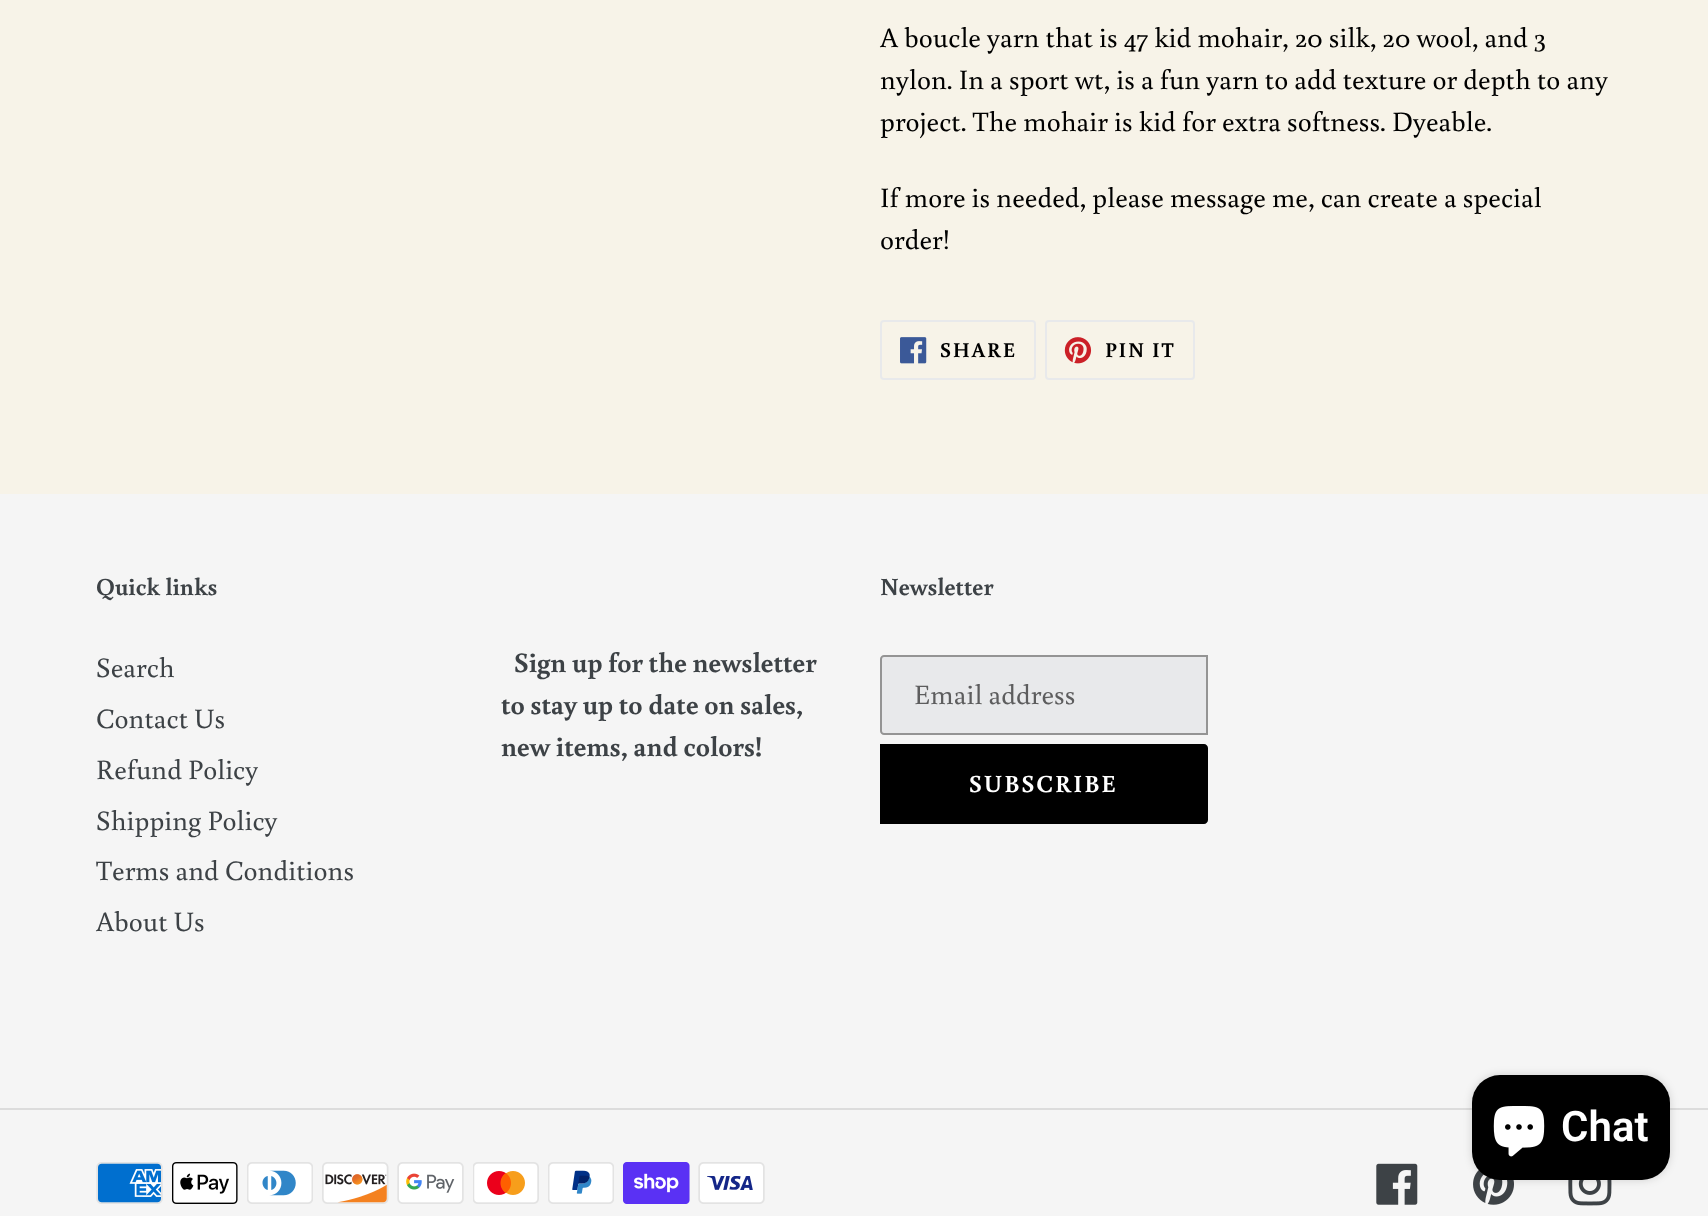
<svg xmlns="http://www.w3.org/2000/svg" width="1708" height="1216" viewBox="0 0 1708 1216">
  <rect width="100%" height="100%" fill="#f7f3e8"/>
  <rect x="881" y="321" width="154" height="58" rx="3" fill="none" stroke="#e8e9eb" stroke-width="2"/>
  <image x="900" y="337" width="27" height="27" href="img/1.png"/>
  <rect x="1046" y="321" width="148" height="58" rx="3" fill="none" stroke="#e8e9eb" stroke-width="2"/>
  <image x="1064" y="337" width="28" height="27" href="img/2.png"/>
  <path d="M0 494h1708v722H0z" fill="#f5f5f5"/>
  <path d="M884 656H1207V734H884C882.5 734 881 732.5 881 731V659C881 657.5 882.5 656 884 656Z" fill="#e8e9eb" stroke="#949494" stroke-width="2"/>
  <path d="M880 744H1204C1206 744 1208 746 1208 748V820C1208 822 1206 824 1204 824H880Z" fill="#000"/>
  <path d="M0 1108h1708v2H0z" fill="#dcdcdc"/>
  <image x="96" y="1162" width="67" height="42" href="img/3.png"/>
  <image x="172" y="1162" width="66" height="42" href="img/4.png"/>
  <image x="247" y="1162" width="66" height="42" href="img/5.png"/>
  <image x="322" y="1162" width="67" height="42" href="img/6.png"/>
  <image x="397" y="1162" width="67" height="42" href="img/7.png"/>
  <image x="473" y="1162" width="66" height="42" href="img/8.png"/>
  <image x="548" y="1162" width="66" height="42" href="img/9.png"/>
  <image x="623" y="1162" width="67" height="42" href="img/10.png"/>
  <image x="698" y="1162" width="67" height="42" href="img/11.png"/>
  <image x="1376" y="1163" width="42" height="42" href="img/12.png"/>
  <image x="1473" y="1170" width="41" height="35" href="img/13.png"/>
  <image x="1568" y="1180" width="44" height="26" href="img/14.png"/>
  <rect x="1472" y="1075" width="198" height="105" rx="28" fill="#00000026" filter="blur(4.5px)"/>
  <rect x="1472" y="1075" width="198" height="105" rx="28" fill="#000"/>
  <image x="1493" y="1106" width="52" height="51" href="img/15.png"/>
  <g font-family="Buenard" font-size="28" fill="#000">
    <text x="880" y="47">A boucle yarn that is 47 kid mohair, 20 silk, 20 wool, and 3</text>
    <text x="880" y="89">nylon. In a sport wt, is a fun yarn to add texture or depth to any</text>
    <text x="880" y="131">project. The mohair is kid for extra softness. Dyeable.</text>
    <text x="880" y="207">If more is needed, please message me, can create a special</text>
    <text x="880" y="249">order!</text>
  </g>
  <g font-family="Buenard" font-size="21" font-weight="bold" letter-spacing="1.75" fill="#000">
    <text x="940" y="357">SHARE</text>
    <text x="1105" y="357">PIN IT</text>
  </g>
  <text x="96" y="595" font-family="Buenard" font-size="24.5" font-weight="bold" fill="#3d4246">Quick links</text>
  <g font-family="Buenard" font-size="28" fill="#3d4246">
    <text x="96" y="677">Search</text>
    <text x="96" y="728">Contact Us</text>
    <text x="96" y="779">Refund Policy</text>
    <text x="96" y="830">Shipping Policy</text>
    <text x="96" y="880">Terms and Conditions</text>
    <text x="96" y="931">About Us</text>
  </g>
  <g font-family="Buenard" font-size="28" font-weight="bold" fill="#3d4246">
    <text x="514" y="672">Sign up for the newsletter</text>
    <text x="501" y="714">to stay up to date on sales,</text>
    <text x="501" y="756">new items, and colors!</text>
  </g>
  <text x="880" y="595" font-family="Buenard" font-size="24.5" font-weight="bold" fill="#3d4246">Newsletter</text>
  <text x="914" y="704" font-family="Buenard" font-size="28" fill="#5d5d5e">Email address</text>
  <text x="969" y="792" font-family="Buenard" font-size="24.5" font-weight="bold" letter-spacing="2" fill="#fff">SUBSCRIBE</text>
  <text x="1561" y="1141" font-family="Roboto" font-size="42" font-weight="600" fill="#fff">Chat</text>
</svg>
